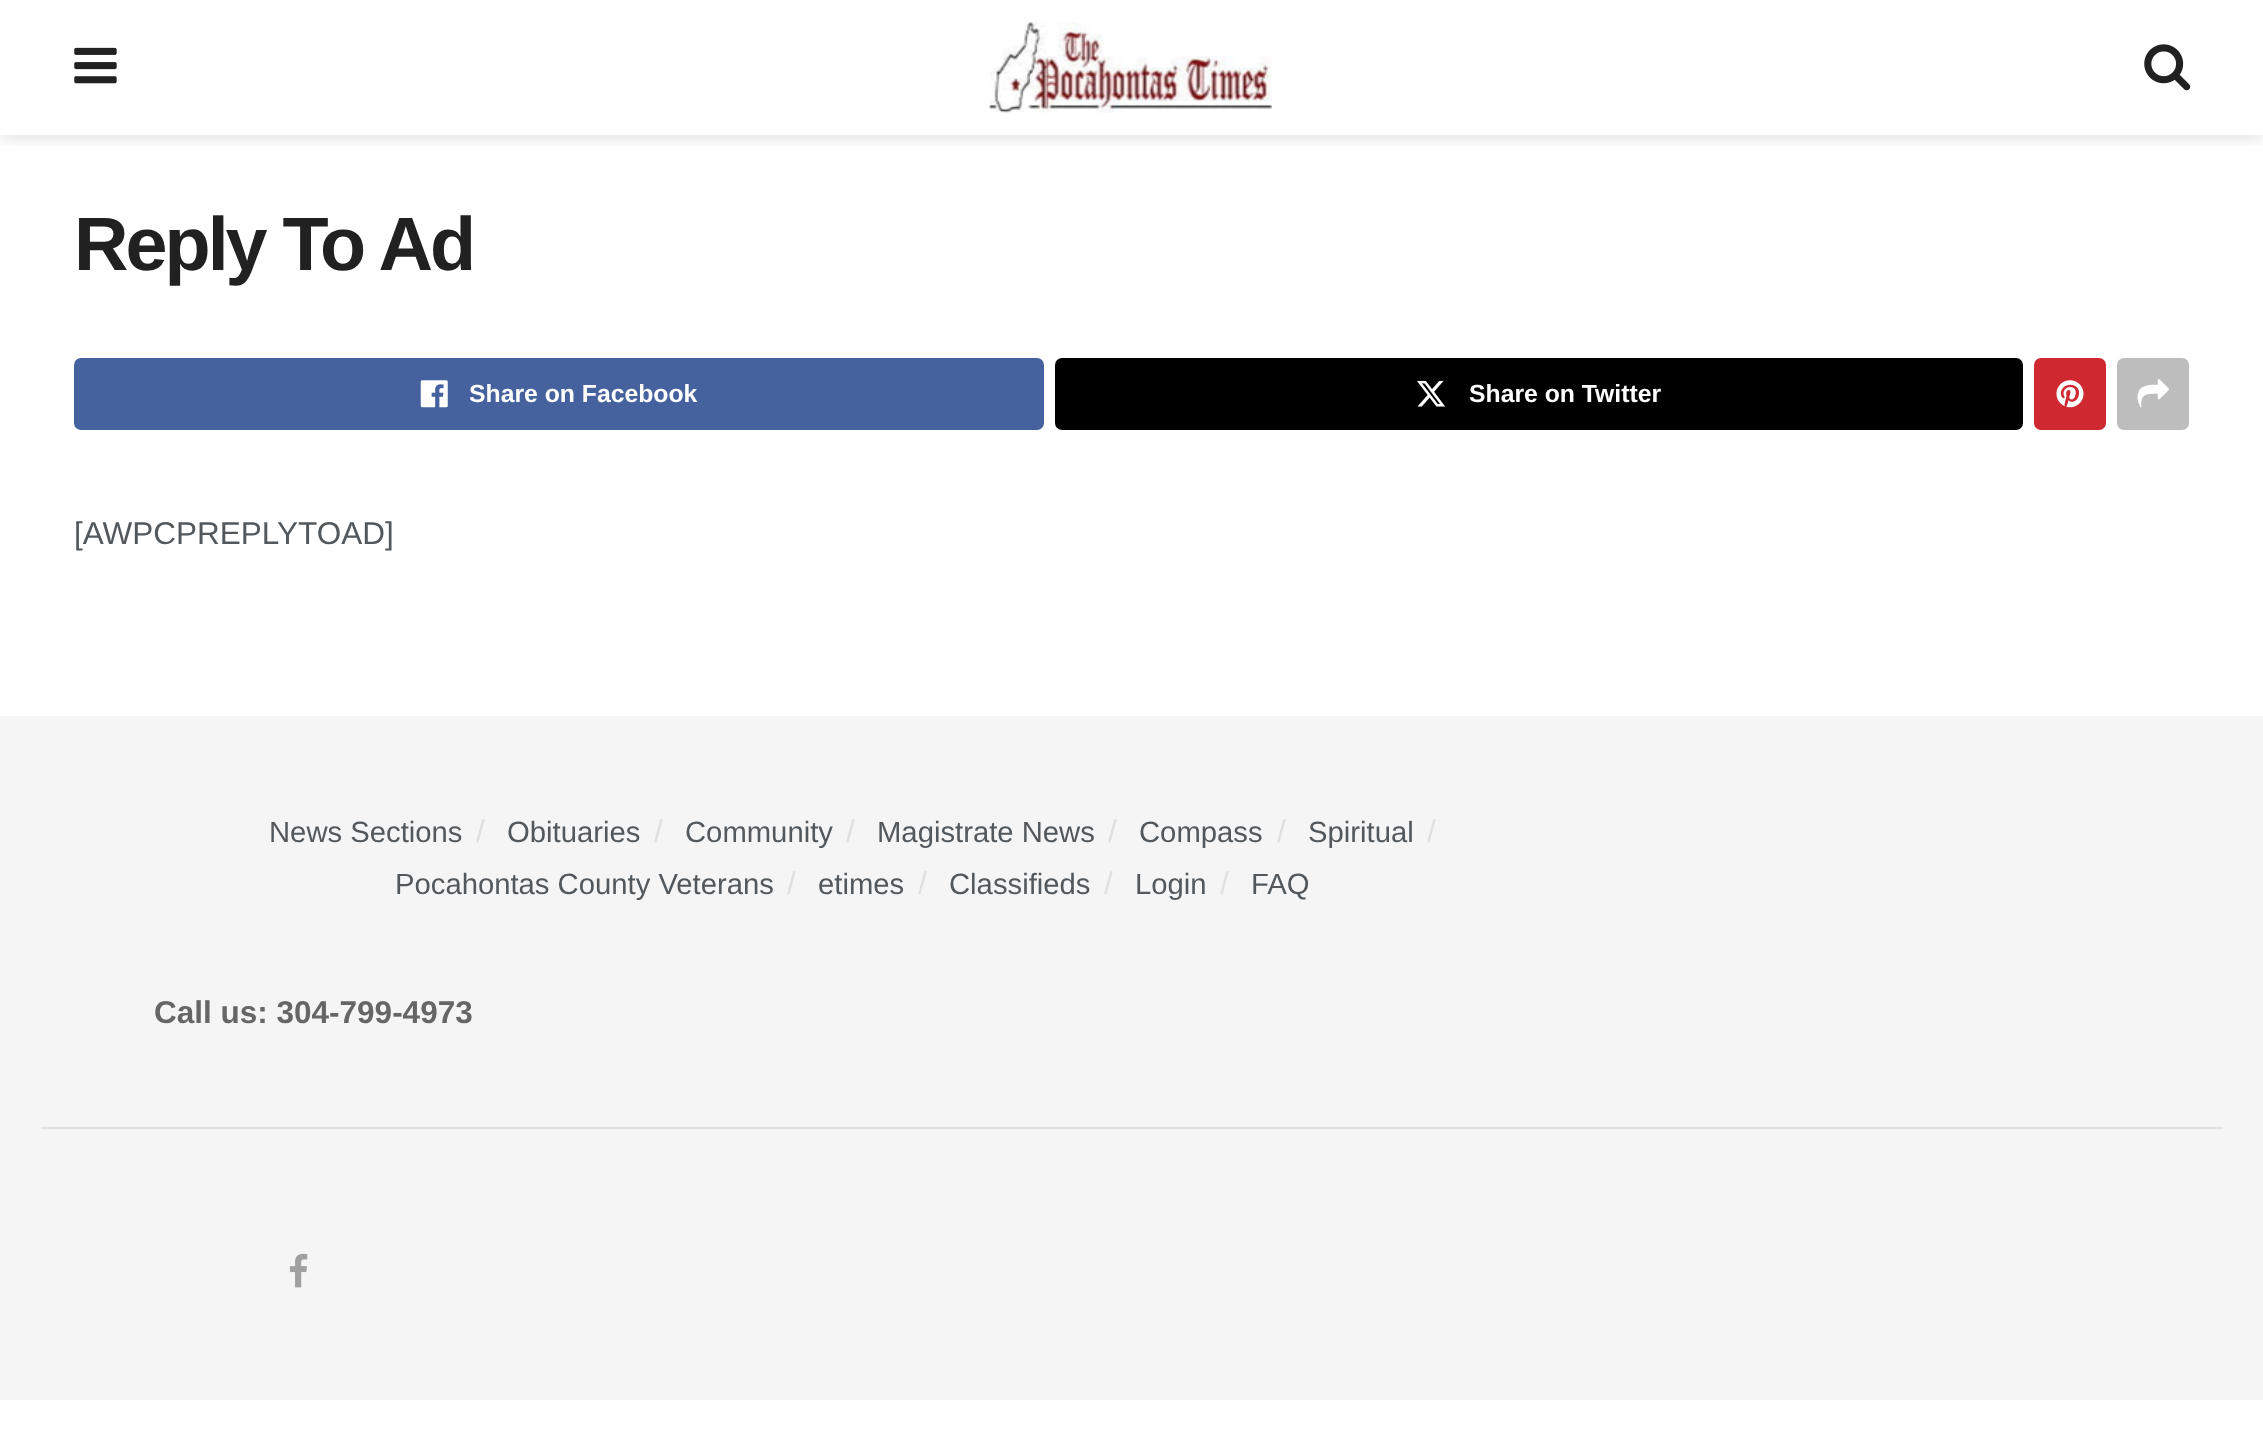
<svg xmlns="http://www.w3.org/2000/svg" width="2263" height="1430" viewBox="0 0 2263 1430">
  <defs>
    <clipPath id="clip1"><path d="M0 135h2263v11H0z"/></clipPath>
  </defs>
  <rect width="100%" height="100%" fill="#fff"/>
  <g clip-path="url(#clip1)">
    <path d="M0 5h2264v135H0z" fill="#0000001a" filter="blur(7px)"/>
  </g>
  <image x="74" y="47" width="43" height="37" href="img/1.png"/>
  <image x="989" y="22" width="283" height="91" href="img/2.png"/>
  <image x="2144" y="44" width="47" height="47" href="img/3.png"/>
  <rect x="74" y="358" width="970" height="72" rx="7" fill="#45629f"/>
  <image x="420" y="380" width="28" height="28" href="img/4.png"/>
  <rect x="1055" y="358" width="968" height="72" rx="7" fill="#000"/>
  <image x="1417" y="380" width="29" height="27" href="img/5.png"/>
  <rect x="2034" y="358" width="72" height="72" rx="7" fill="#cf2830"/>
  <image x="2056" y="380" width="28" height="28" href="img/6.png"/>
  <rect x="2117" y="358" width="72" height="72" rx="7" fill="#bdbdbd"/>
  <image x="2137" y="379" width="32" height="29" href="img/7.png"/>
  <path d="M0 716h2263v684H0z" fill="#f5f5f5"/>
  <path d="M41 1127h2182v2H41z" fill="#e0e0e0"/>
  <image x="289" y="1253" width="19" height="35" href="img/8.png"/>
  <text x="74" y="270" font-family="Liberation Sans" font-size="75.5" font-weight="bold" letter-spacing="-3" fill="#212121">Reply To Ad</text>
  <g font-family="Liberation Sans" font-size="24.75" font-weight="bold" fill="#fff">
    <text x="469" y="402">Share on Facebook</text>
    <text x="1469" y="402">Share on Twitter</text>
  </g>
  <text x="74" y="544" font-family="Liberation Sans" font-size="31.5" fill="#53585c">[AWPCPREPLYTOAD]</text>
  <text x="269" y="842" font-family="Liberation Sans" font-size="29.25" fill="#53585c">News Sections</text>
  <text x="476" y="842" font-family="Liberation Sans" font-size="31.5" fill="#e0e0e0">/</text>
  <text x="507" y="842" font-family="Liberation Sans" font-size="29.25" fill="#53585c">Obituaries</text>
  <text x="654" y="842" font-family="Liberation Sans" font-size="31.5" fill="#e0e0e0">/</text>
  <text x="685" y="842" font-family="Liberation Sans" font-size="29.25" fill="#53585c">Community</text>
  <text x="846" y="842" font-family="Liberation Sans" font-size="31.5" fill="#e0e0e0">/</text>
  <text x="877" y="842" font-family="Liberation Sans" font-size="29.25" fill="#53585c">Magistrate News</text>
  <text x="1108" y="842" font-family="Liberation Sans" font-size="31.5" fill="#e0e0e0">/</text>
  <text x="1139" y="842" font-family="Liberation Sans" font-size="29.25" fill="#53585c">Compass</text>
  <text x="1277" y="842" font-family="Liberation Sans" font-size="31.5" fill="#e0e0e0">/</text>
  <text x="1308" y="842" font-family="Liberation Sans" font-size="29.25" fill="#53585c">Spiritual</text>
  <text x="1427" y="842" font-family="Liberation Sans" font-size="31.5" fill="#e0e0e0">/</text>
  <text x="395" y="894" font-family="Liberation Sans" font-size="29.25" fill="#53585c">Pocahontas County Veterans</text>
  <text x="787" y="894" font-family="Liberation Sans" font-size="31.5" fill="#e0e0e0">/</text>
  <text x="818" y="894" font-family="Liberation Sans" font-size="29.25" fill="#53585c">etimes</text>
  <text x="918" y="894" font-family="Liberation Sans" font-size="31.5" fill="#e0e0e0">/</text>
  <text x="949" y="894" font-family="Liberation Sans" font-size="29.25" fill="#53585c">Classifieds</text>
  <text x="1104" y="894" font-family="Liberation Sans" font-size="31.5" fill="#e0e0e0">/</text>
  <text x="1135" y="894" font-family="Liberation Sans" font-size="29.25" fill="#53585c">Login</text>
  <text x="1220" y="894" font-family="Liberation Sans" font-size="31.5" fill="#e0e0e0">/</text>
  <text x="1251" y="894" font-family="Liberation Sans" font-size="29.25" fill="#53585c">FAQ</text>
  <text x="154" y="1023" font-family="Liberation Sans" font-size="31.5" font-weight="bold" fill="#666">Call us: 304-799-4973</text>
</svg>
